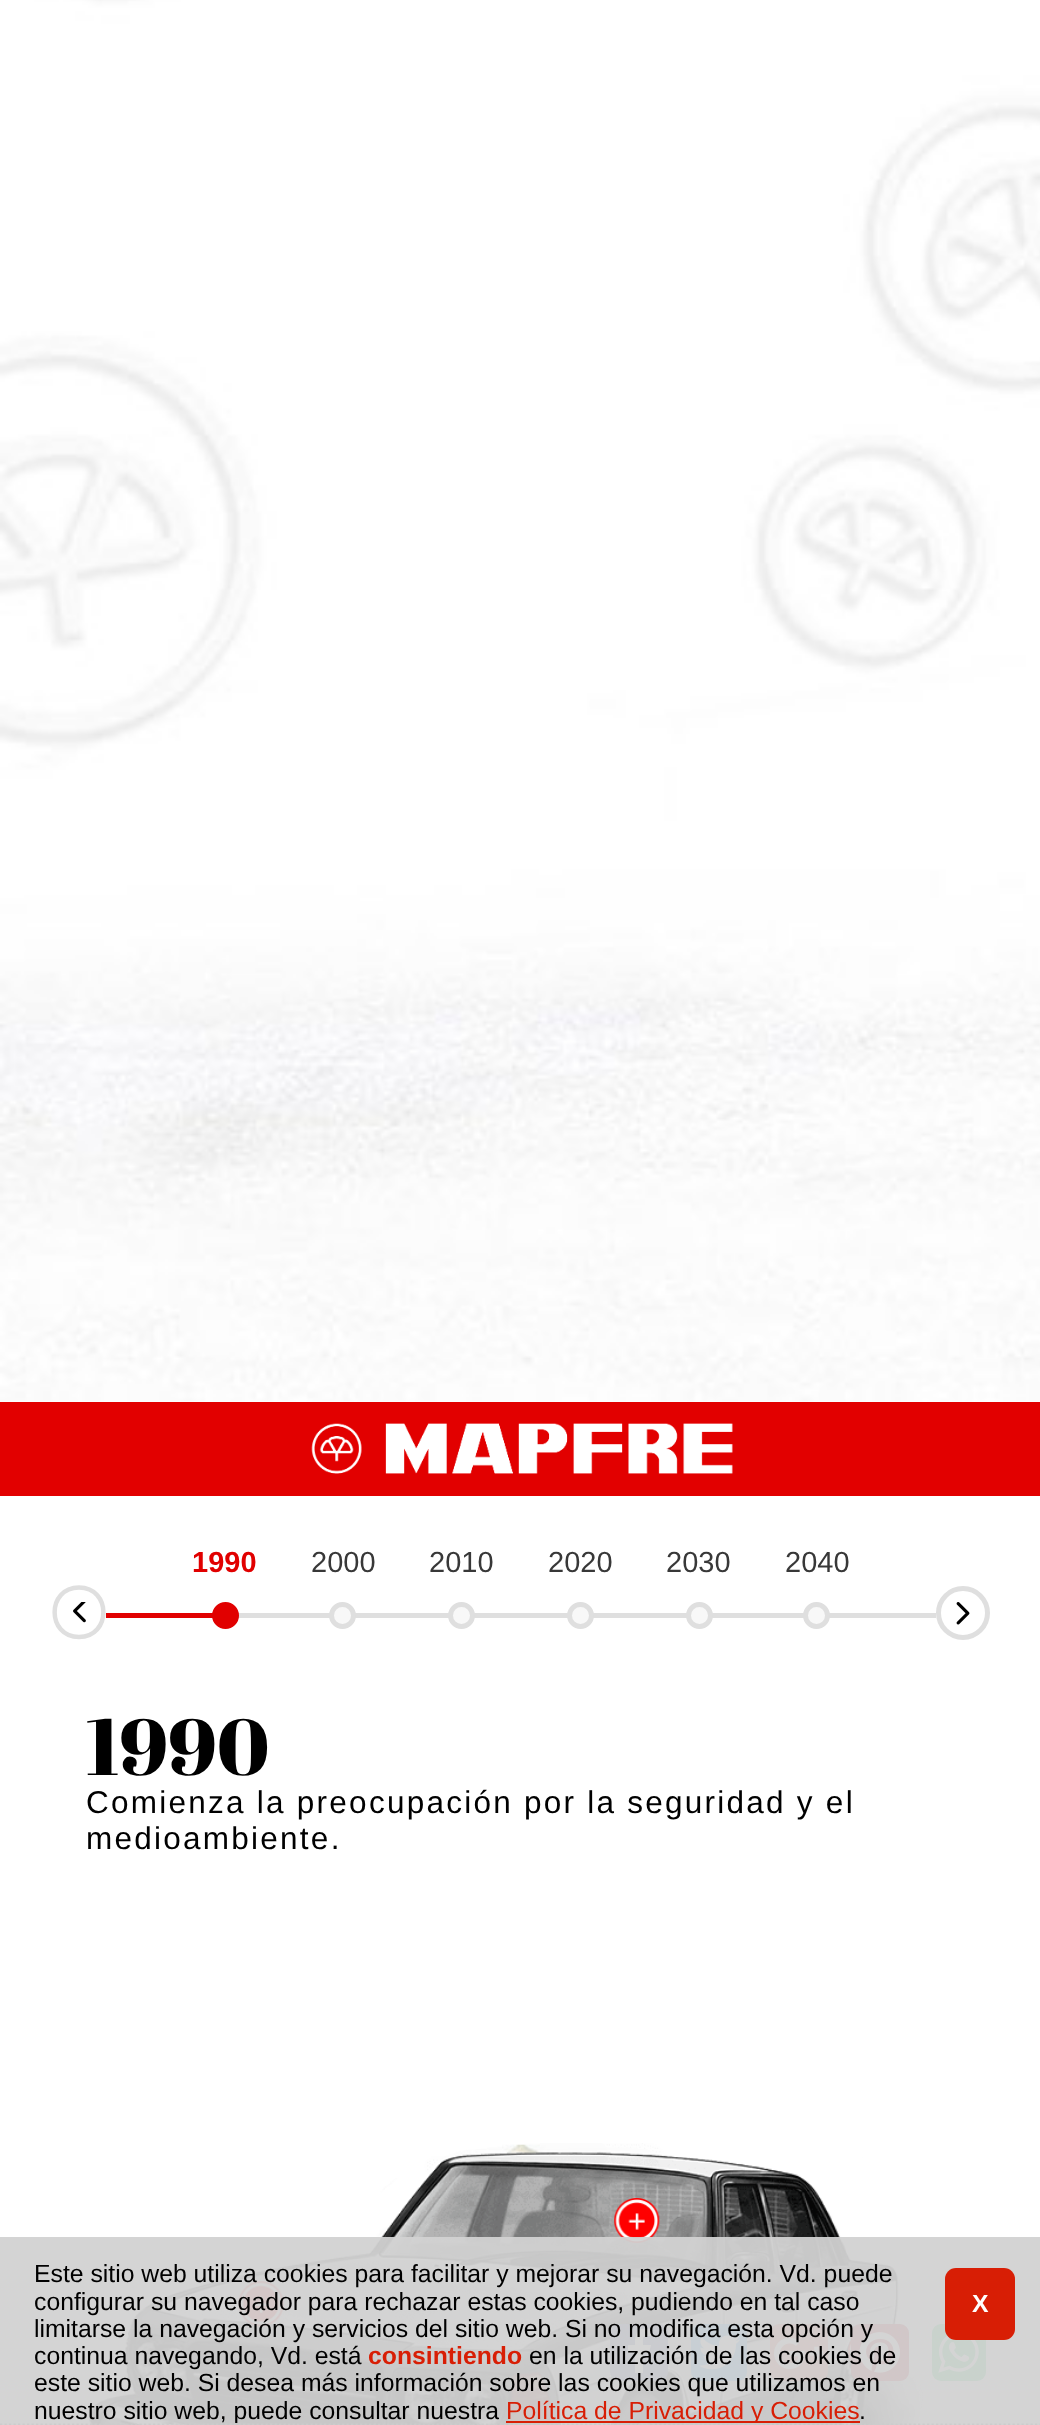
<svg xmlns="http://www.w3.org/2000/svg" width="1040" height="2425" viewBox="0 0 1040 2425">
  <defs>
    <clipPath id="clip1"><path d="M0 2237h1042v186H0z"/></clipPath>
  </defs>
  <rect width="100%" height="100%" fill="#fff"/>
  <image x="0" y="0" width="1040" height="1402" href="img/1.png"/>
  <path d="M0 1402h1040v94H0z" fill="#e20000"/>
  <image x="311" y="1423" width="422" height="51" href="img/2.png"/>
  <path d="M238 1613h698v5H238z" fill="#dfdfdf"/>
  <path d="M106 1613h107v5H106z" fill="#e10000"/>
  <circle cx="225.5" cy="1615.5" r="11" fill="#e10000" stroke="#e10000" stroke-width="5"/>
  <circle cx="342.5" cy="1615.5" r="11" fill="#f8f8f8" stroke="#dfdfdf" stroke-width="5"/>
  <circle cx="461.5" cy="1615.5" r="11" fill="#f8f8f8" stroke="#dfdfdf" stroke-width="5"/>
  <circle cx="580.5" cy="1615.5" r="11" fill="#f8f8f8" stroke="#dfdfdf" stroke-width="5"/>
  <circle cx="699.5" cy="1615.5" r="11" fill="#f8f8f8" stroke="#dfdfdf" stroke-width="5"/>
  <circle cx="816.5" cy="1615.5" r="11" fill="#f8f8f8" stroke="#dfdfdf" stroke-width="5"/>
  <path d="M79 1637C46.5 1637 46.5 1587.5 79 1587.5C111.5 1587.5 111.5 1637 79 1637Z" fill="none" stroke="#dfdfdf" stroke-width="4.5"/>
  <image x="73" y="1602" width="13" height="21" href="img/3.png"/>
  <circle cx="963" cy="1613" r="24.5" fill="none" stroke="#dfdfdf" stroke-width="5"/>
  <image x="956" y="1602" width="14" height="23" href="img/4.png"/>
  <image x="267" y="2144" width="610" height="281" href="img/5.png"/>
  <image x="89" y="2143" width="859" height="282" href="img/6.png"/>
  <image x="614" y="2198" width="46" height="46" href="img/7.png"/>
  <image x="238" y="2281" width="46" height="46" href="img/8.png"/>
  <image x="848" y="2339" width="3" height="24" href="img/9.png"/>
  <rect x="610" y="2324" width="58" height="57" rx="9" fill="#3b5998"/>
  <path d="M651 2329V2336C642 2336 643 2336 643 2345H651L649 2353H643V2373H635V2353H628V2345H635C635 2332 637 2327 651 2329Z" fill="#fff"/>
  <rect x="691" y="2324" width="56" height="57" rx="9" fill="#1da1f2"/>
  <image x="698" y="2335" width="42" height="35" href="img/10.png"/>
  <rect x="770" y="2324" width="58" height="57" rx="9" fill="#dd4b39"/>
  <image x="774" y="2337" width="50" height="32" href="img/11.png"/>
  <rect x="851" y="2324" width="58" height="57" rx="9" fill="#bd081c"/>
  <image x="859" y="2332" width="41" height="41" href="img/12.png"/>
  <rect x="932" y="2324" width="54" height="57" rx="9" fill="#25d366"/>
  <image x="938" y="2335" width="41" height="38" href="img/13.png"/>
  <path d="M0 2237h1040v188H0z" fill="#d2d2d2f2"/>
  <path d="M0 2424.5H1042" fill="none" stroke="#ccc" stroke-width="2.2" stroke-dasharray="2.25 2.25"/>
  <path d="M506 2421h354v2H506z" fill="#d81e05"/>
  <rect x="945" y="2268" width="70" height="72" rx="11" fill="#d81e05"/>
  <text x="192" y="1572" font-family="Liberation Sans" font-size="29" font-weight="bold" fill="#e10000">1990</text>
  <g font-family="Liberation Sans" font-size="29" fill="#383838">
    <text x="311" y="1572">2000</text>
    <text x="429" y="1572">2010</text>
    <text x="548" y="1572">2020</text>
    <text x="666" y="1572">2030</text>
    <text x="785" y="1572">2040</text>
  </g>
  <text x="86" y="1775" font-family="Abril Fatface" font-size="79" fill="#000">1990</text>
  <g font-family="Liberation Sans" font-size="31.5" letter-spacing="2.25" fill="#000">
    <text x="86" y="1813">Comienza la preocupación por la seguridad y el</text>
    <text x="86" y="1849">medioambiente.</text>
  </g>
  <g font-family="Liberation Sans" font-size="24.75" fill="#000">
    <text x="34" y="2282">Este sitio web utiliza cookies para facilitar y mejorar su navegación. Vd. puede</text>
    <text x="34" y="2310">configurar su navegador para rechazar estas cookies, pudiendo en tal caso</text>
    <text x="34" y="2337">limitarse la navegación y servicios del sitio web. Si no modifica esta opción y</text>
    <text x="34" y="2364">continua navegando, Vd. está</text>
  </g>
  <text x="368" y="2364" font-family="Liberation Sans" font-size="24.75" font-weight="bold" fill="#d81e05">consintiendo</text>
  <g font-family="Liberation Sans" font-size="24.75" fill="#000">
    <text x="529" y="2364">en la utilización de las cookies de</text>
    <text x="34" y="2391">este sitio web. Si desea más información sobre las cookies que utilizamos en</text>
  </g>
  <g clip-path="url(#clip1)">
    <text x="34" y="2419" font-family="Liberation Sans" font-size="24.75" fill="#000">nuestro sitio web, puede consultar nuestra</text>
    <text x="506" y="2419" font-family="Liberation Sans" font-size="24.75" fill="#d81e05">Política de Privacidad y Cookies</text>
  </g>
  <text x="859" y="2419" font-family="Liberation Sans" font-size="24.75" fill="#000">.</text>
  <text x="972" y="2312" font-family="Liberation Sans" font-size="24.75" font-weight="bold" letter-spacing="-1" fill="#fff">X</text>
</svg>
